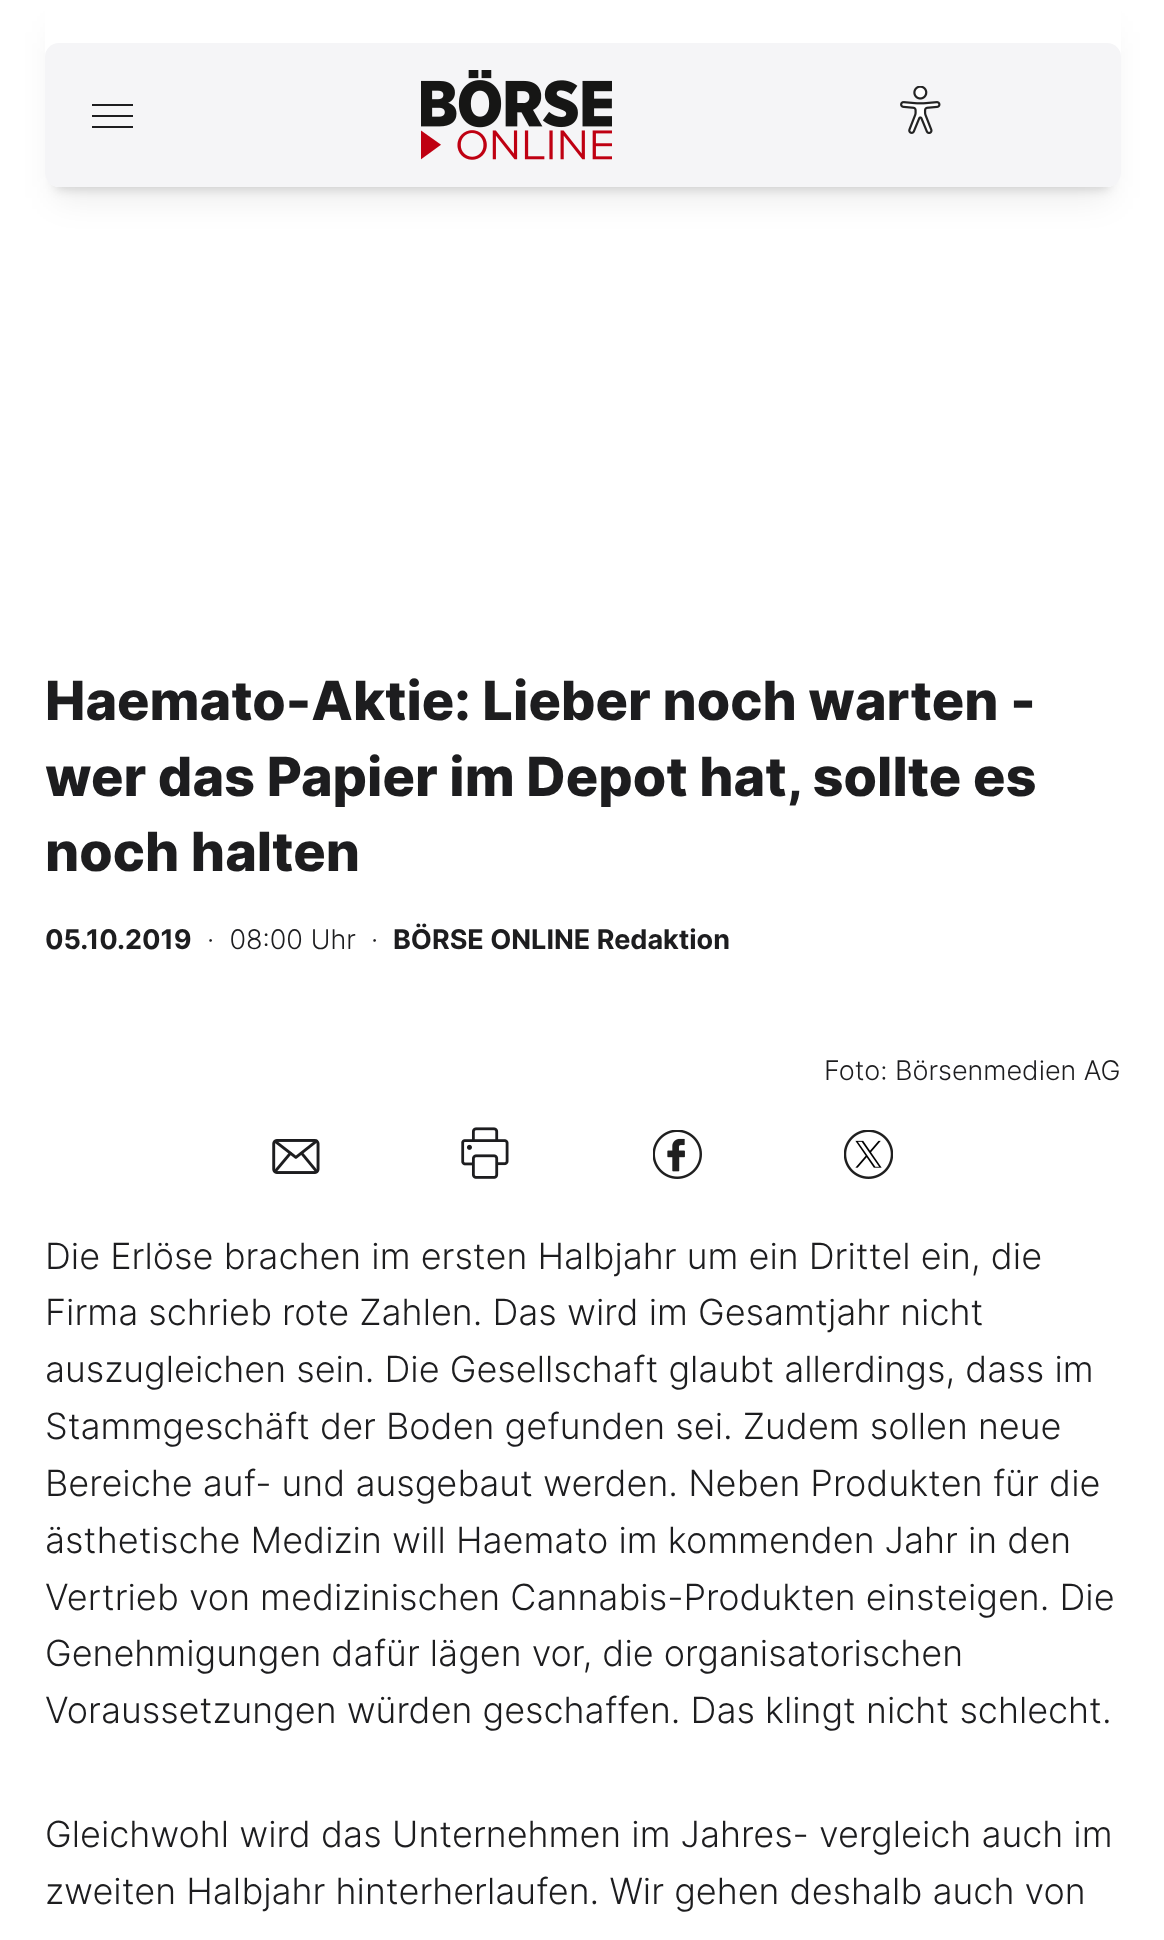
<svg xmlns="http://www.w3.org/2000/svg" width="1164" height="1940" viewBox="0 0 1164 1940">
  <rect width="100%" height="100%" fill="#fff"/>
  <rect x="56" y="32" width="1053" height="166" rx="2" fill="#00000014" filter="blur(17px)"/>
  <rect x="56" y="23" width="1053" height="166" rx="2" fill="#00000026" filter="blur(5.5px)"/>
  <path d="M45-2H1121V173C1121 180.5 1114.5 187 1107 187H59C51.5 187 45 180.5 45 173Z" fill="#fff"/>
  <rect x="45" y="43" width="1076" height="144" rx="14" fill="#f5f5f7"/>
  <path d="M92 104h41v2H92z" fill="#1d1d1f"/>
  <path d="M92 115h41v2H92z" fill="#1d1d1f"/>
  <path d="M92 126h41v2H92z" fill="#1d1d1f"/>
  <image x="421" y="70" width="191" height="90" href="img/1.png"/>
  <image x="900" y="86" width="41" height="48" href="img/2.png"/>
  <image x="272" y="1139" width="48" height="35" href="img/3.png"/>
  <image x="461" y="1127" width="48" height="52" href="img/4.png"/>
  <image x="653" y="1130" width="49" height="49" href="img/5.png"/>
  <image x="844" y="1130" width="49" height="49" href="img/6.png"/>
  <g font-family="Inter" font-size="54" font-weight="800" fill="#1d1d1f">
    <text x="45" y="720">Haemato-Aktie: Lieber noch warten -</text>
    <text x="45" y="796">wer das Papier im Depot hat, sollte es</text>
    <text x="45" y="871">noch halten</text>
  </g>
  <text x="45" y="949" font-family="Inter" font-size="27" font-weight="bold" fill="#1d1d1f">05.10.2019</text>
  <g font-family="Inter" font-size="27" font-weight="300" fill="#1d1d1f">
    <text x="207" y="949" xml:space="preserve">·  08:00 Uhr</text>
    <text x="371" y="949">·</text>
  </g>
  <text x="393" y="949" font-family="Inter" font-size="27" font-weight="bold" fill="#1d1d1f">BÖRSE ONLINE Redaktion</text>
  <text x="824" y="1080" font-family="Inter" font-size="27" font-weight="300" fill="#1d1d1f">Foto: Börsenmedien AG</text>
  <g font-family="Inter" font-size="36" font-weight="300" fill="#1d1d1f">
    <text x="45" y="1269">Die Erlöse brachen im ersten Halbjahr um ein Drittel ein, die</text>
    <text x="45" y="1325">Firma schrieb rote Zahlen. Das wird im Gesamtjahr nicht</text>
    <text x="45" y="1382">auszugleichen sein. Die Gesellschaft glaubt allerdings, dass im</text>
    <text x="45" y="1439">Stammgeschäft der Boden gefunden sei. Zudem sollen neue</text>
    <text x="45" y="1496">Bereiche auf- und ausgebaut werden. Neben Produkten für die</text>
    <text x="45" y="1553">ästhetische Medizin will Haemato im kommenden Jahr in den</text>
    <text x="45" y="1610">Vertrieb von medizinischen Cannabis-Produkten einsteigen. Die</text>
    <text x="45" y="1666">Genehmigungen dafür lägen vor, die organisatorischen</text>
    <text x="45" y="1723">Voraussetzungen würden geschaffen. Das klingt nicht schlecht.</text>
    <text x="45" y="1847">Gleichwohl wird das Unternehmen im Jahres- vergleich auch im</text>
    <text x="45" y="1904">zweiten Halbjahr hinterherlaufen. Wir gehen deshalb auch von</text>
  </g>
</svg>
